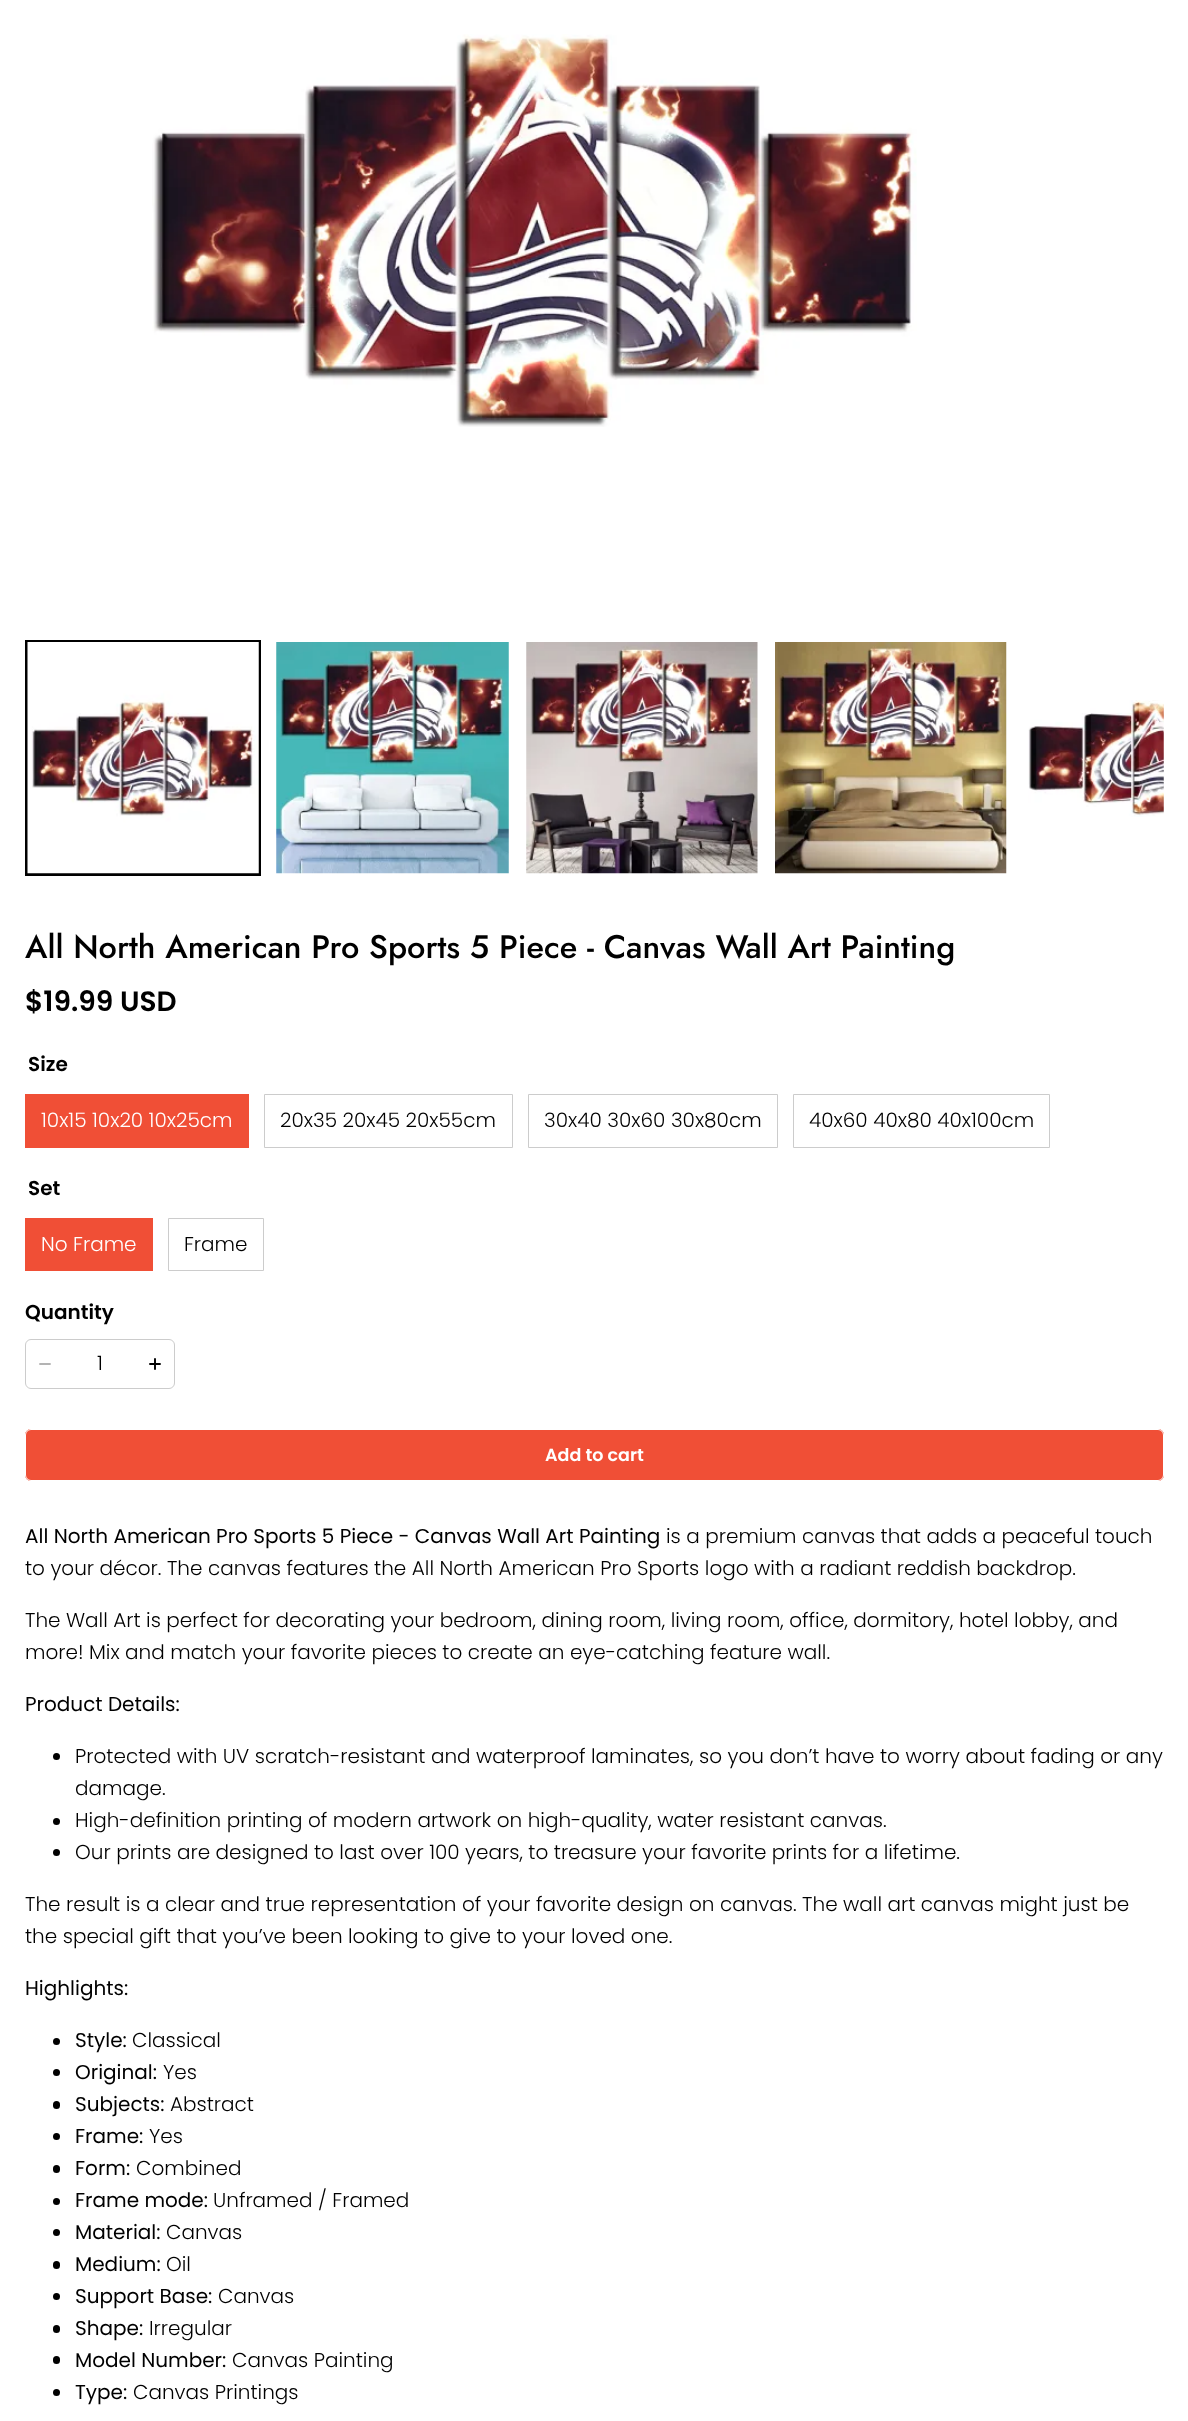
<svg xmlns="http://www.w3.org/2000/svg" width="1188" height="2421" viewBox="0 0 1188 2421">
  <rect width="100%" height="100%" fill="#fff"/>
  <image x="152" y="34" width="765" height="393" href="img/1.png"/>
  <path d="M26.5 641.5h233v233H26.5z" fill="none" stroke="#000" stroke-width="3"/>
  <image x="27" y="642" width="232" height="232" href="img/2.png"/>
  <image x="276" y="642" width="233" height="232" href="img/3.png"/>
  <image x="526" y="642" width="232" height="232" href="img/4.png"/>
  <image x="775" y="642" width="232" height="232" href="img/5.png"/>
  <image x="1028" y="700" width="136" height="117" href="img/6.png"/>
  <path d="M25 1094h224v54H25z" fill="#f04f36"/>
  <path d="M264.5 1094.5h248v53H264.5z" fill="none" stroke="#ccc"/>
  <path d="M528.5 1094.5h249v53H528.5z" fill="none" stroke="#ccc"/>
  <path d="M793.5 1094.5h256v53H793.5z" fill="none" stroke="#ccc"/>
  <path d="M25 1218h128v53H25z" fill="#f04f36"/>
  <path d="M168.5 1218.5h95v52H168.5z" fill="none" stroke="#ccc"/>
  <path d="M50 1364H40" fill="none" stroke="#b3b3b3" stroke-width="1.9" stroke-linecap="round"/>
  <path d="M160 1364H150M155 1359V1369" fill="none" stroke="#000" stroke-width="1.9" stroke-linecap="round"/>
  <rect x="25.5" y="1339.5" width="149" height="49" rx="5.5" fill="none" stroke="#ccc"/>
  <rect x="25" y="1429" width="1139" height="52" rx="6" fill="#f04f36"/>
  <rect x="25.5" y="1429.5" width="1138" height="51" rx="5.5" fill="none" stroke="#f04f36"/>
  <rect x="25.5" y="1429.5" width="1138" height="51" rx="5.5" fill="none" stroke="#fff"/>
  <circle cx="56.5" cy="1756.5" r="3.5" fill="#000"/>
  <circle cx="56.5" cy="1821.5" r="3.5" fill="#000"/>
  <circle cx="56.5" cy="1852.5" r="3.5" fill="#000"/>
  <circle cx="56.5" cy="2041.5" r="3.5" fill="#000"/>
  <circle cx="56.5" cy="2072.5" r="3.5" fill="#000"/>
  <rect x="53" y="2101" width="7" height="8" rx="3.5" fill="#000"/>
  <circle cx="56.5" cy="2136.5" r="3.5" fill="#000"/>
  <rect x="53" y="2165" width="7" height="8" rx="3.5" fill="#000"/>
  <circle cx="56.5" cy="2201.5" r="3.5" fill="#000"/>
  <circle cx="56.5" cy="2232.5" r="3.5" fill="#000"/>
  <rect x="53" y="2261" width="7" height="8" rx="3.5" fill="#000"/>
  <circle cx="56.5" cy="2296.5" r="3.5" fill="#000"/>
  <rect x="53" y="2325" width="7" height="8" rx="3.5" fill="#000"/>
  <rect x="53" y="2356" width="7" height="8" rx="3.5" fill="#000"/>
  <circle cx="56.5" cy="2392.5" r="3.5" fill="#000"/>
  <text x="25" y="958" font-family="Jost" font-size="32.5" font-weight="500" fill="#000">All North American Pro Sports 5 Piece - Canvas Wall Art Painting</text>
  <text x="25" y="1011" font-family="Poppins" font-size="28" font-weight="600" fill="#000">$19.99 USD</text>
  <text x="28" y="1071" font-family="Poppins" font-size="20" font-weight="600" fill="#000">Size</text>
  <text x="41" y="1127" font-family="Poppins" font-size="20" font-weight="300" fill="#fff">10x15 10x20 10x25cm</text>
  <g font-family="Poppins" font-size="20" font-weight="300" fill="#000">
    <text x="280" y="1127">20x35 20x45 20x55cm</text>
    <text x="544" y="1127">30x40 30x60 30x80cm</text>
    <text x="809" y="1127">40x60 40x80 40x100cm</text>
  </g>
  <text x="28" y="1195" font-family="Poppins" font-size="20" font-weight="600" fill="#000">Set</text>
  <text x="41" y="1251" font-family="Poppins" font-size="20" font-weight="300" fill="#fff">No Frame</text>
  <text x="184" y="1251" font-family="Poppins" font-size="20" font-weight="300" fill="#000">Frame</text>
  <text x="25" y="1319" font-family="Poppins" font-size="20" font-weight="600" fill="#000">Quantity</text>
  <text x="97" y="1370" font-family="Poppins" font-size="20" font-weight="300" fill="#000">1</text>
  <text x="545" y="1461" font-family="Poppins" font-size="17.5" font-weight="600" fill="#fff">Add to cart</text>
  <text x="25" y="1543" font-family="Poppins" font-size="20" fill="#000">All North American Pro Sports 5 Piece - Canvas Wall Art Painting</text>
  <g font-family="Poppins" font-size="20" font-weight="300" fill="#000">
    <text x="666" y="1543">is a premium canvas that adds a peaceful touch</text>
    <text x="25" y="1575">to your décor. The canvas features the All North American Pro Sports logo with a radiant reddish backdrop.</text>
    <text x="25" y="1627">The Wall Art is perfect for decorating your bedroom, dining room, living room, office, dormitory, hotel lobby, and</text>
    <text x="25" y="1659">more! Mix and match your favorite pieces to create an eye-catching feature wall.</text>
  </g>
  <text x="25" y="1711" font-family="Poppins" font-size="20" fill="#000">Product Details:</text>
  <g font-family="Poppins" font-size="20" font-weight="300" fill="#000">
    <text x="75" y="1763">Protected with UV scratch-resistant and waterproof laminates, so you don’t have to worry about fading or any</text>
    <text x="75" y="1795">damage.</text>
    <text x="75" y="1827">High-definition printing of modern artwork on high-quality, water resistant canvas.</text>
    <text x="75" y="1859">Our prints are designed to last over 100 years, to treasure your favorite prints for a lifetime.</text>
    <text x="25" y="1911">The result is a clear and true representation of your favorite design on canvas. The wall art canvas might just be</text>
    <text x="25" y="1943">the special gift that you’ve been looking to give to your loved one.</text>
  </g>
  <g font-family="Poppins" font-size="20" fill="#000">
    <text x="25" y="1995">Highlights:</text>
    <text x="75" y="2047">Style:</text>
  </g>
  <text x="132" y="2047" font-family="Poppins" font-size="20" font-weight="300" fill="#000">Classical</text>
  <text x="75" y="2079" font-family="Poppins" font-size="20" fill="#000">Original:</text>
  <text x="163" y="2079" font-family="Poppins" font-size="20" font-weight="300" fill="#000">Yes</text>
  <text x="75" y="2111" font-family="Poppins" font-size="20" fill="#000">Subjects:</text>
  <text x="170" y="2111" font-family="Poppins" font-size="20" font-weight="300" fill="#000">Abstract</text>
  <text x="75" y="2143" font-family="Poppins" font-size="20" fill="#000">Frame:</text>
  <text x="149" y="2143" font-family="Poppins" font-size="20" font-weight="300" fill="#000">Yes</text>
  <text x="75" y="2175" font-family="Poppins" font-size="20" fill="#000">Form:</text>
  <text x="136" y="2175" font-family="Poppins" font-size="20" font-weight="300" fill="#000">Combined</text>
  <text x="75" y="2207" font-family="Poppins" font-size="20" fill="#000">Frame mode:</text>
  <text x="213" y="2207" font-family="Poppins" font-size="20" font-weight="300" fill="#000">Unframed / Framed</text>
  <text x="75" y="2239" font-family="Poppins" font-size="20" fill="#000">Material:</text>
  <text x="166" y="2239" font-family="Poppins" font-size="20" font-weight="300" fill="#000">Canvas</text>
  <text x="75" y="2271" font-family="Poppins" font-size="20" fill="#000">Medium:</text>
  <text x="166" y="2271" font-family="Poppins" font-size="20" font-weight="300" fill="#000">Oil</text>
  <text x="75" y="2303" font-family="Poppins" font-size="20" fill="#000">Support Base:</text>
  <text x="218" y="2303" font-family="Poppins" font-size="20" font-weight="300" fill="#000">Canvas</text>
  <text x="75" y="2335" font-family="Poppins" font-size="20" fill="#000">Shape:</text>
  <text x="149" y="2335" font-family="Poppins" font-size="20" font-weight="300" fill="#000">Irregular</text>
  <text x="75" y="2367" font-family="Poppins" font-size="20" fill="#000">Model Number:</text>
  <text x="232" y="2367" font-family="Poppins" font-size="20" font-weight="300" fill="#000">Canvas Painting</text>
  <text x="75" y="2399" font-family="Poppins" font-size="20" fill="#000">Type:</text>
  <text x="133" y="2399" font-family="Poppins" font-size="20" font-weight="300" fill="#000">Canvas Printings</text>
</svg>
